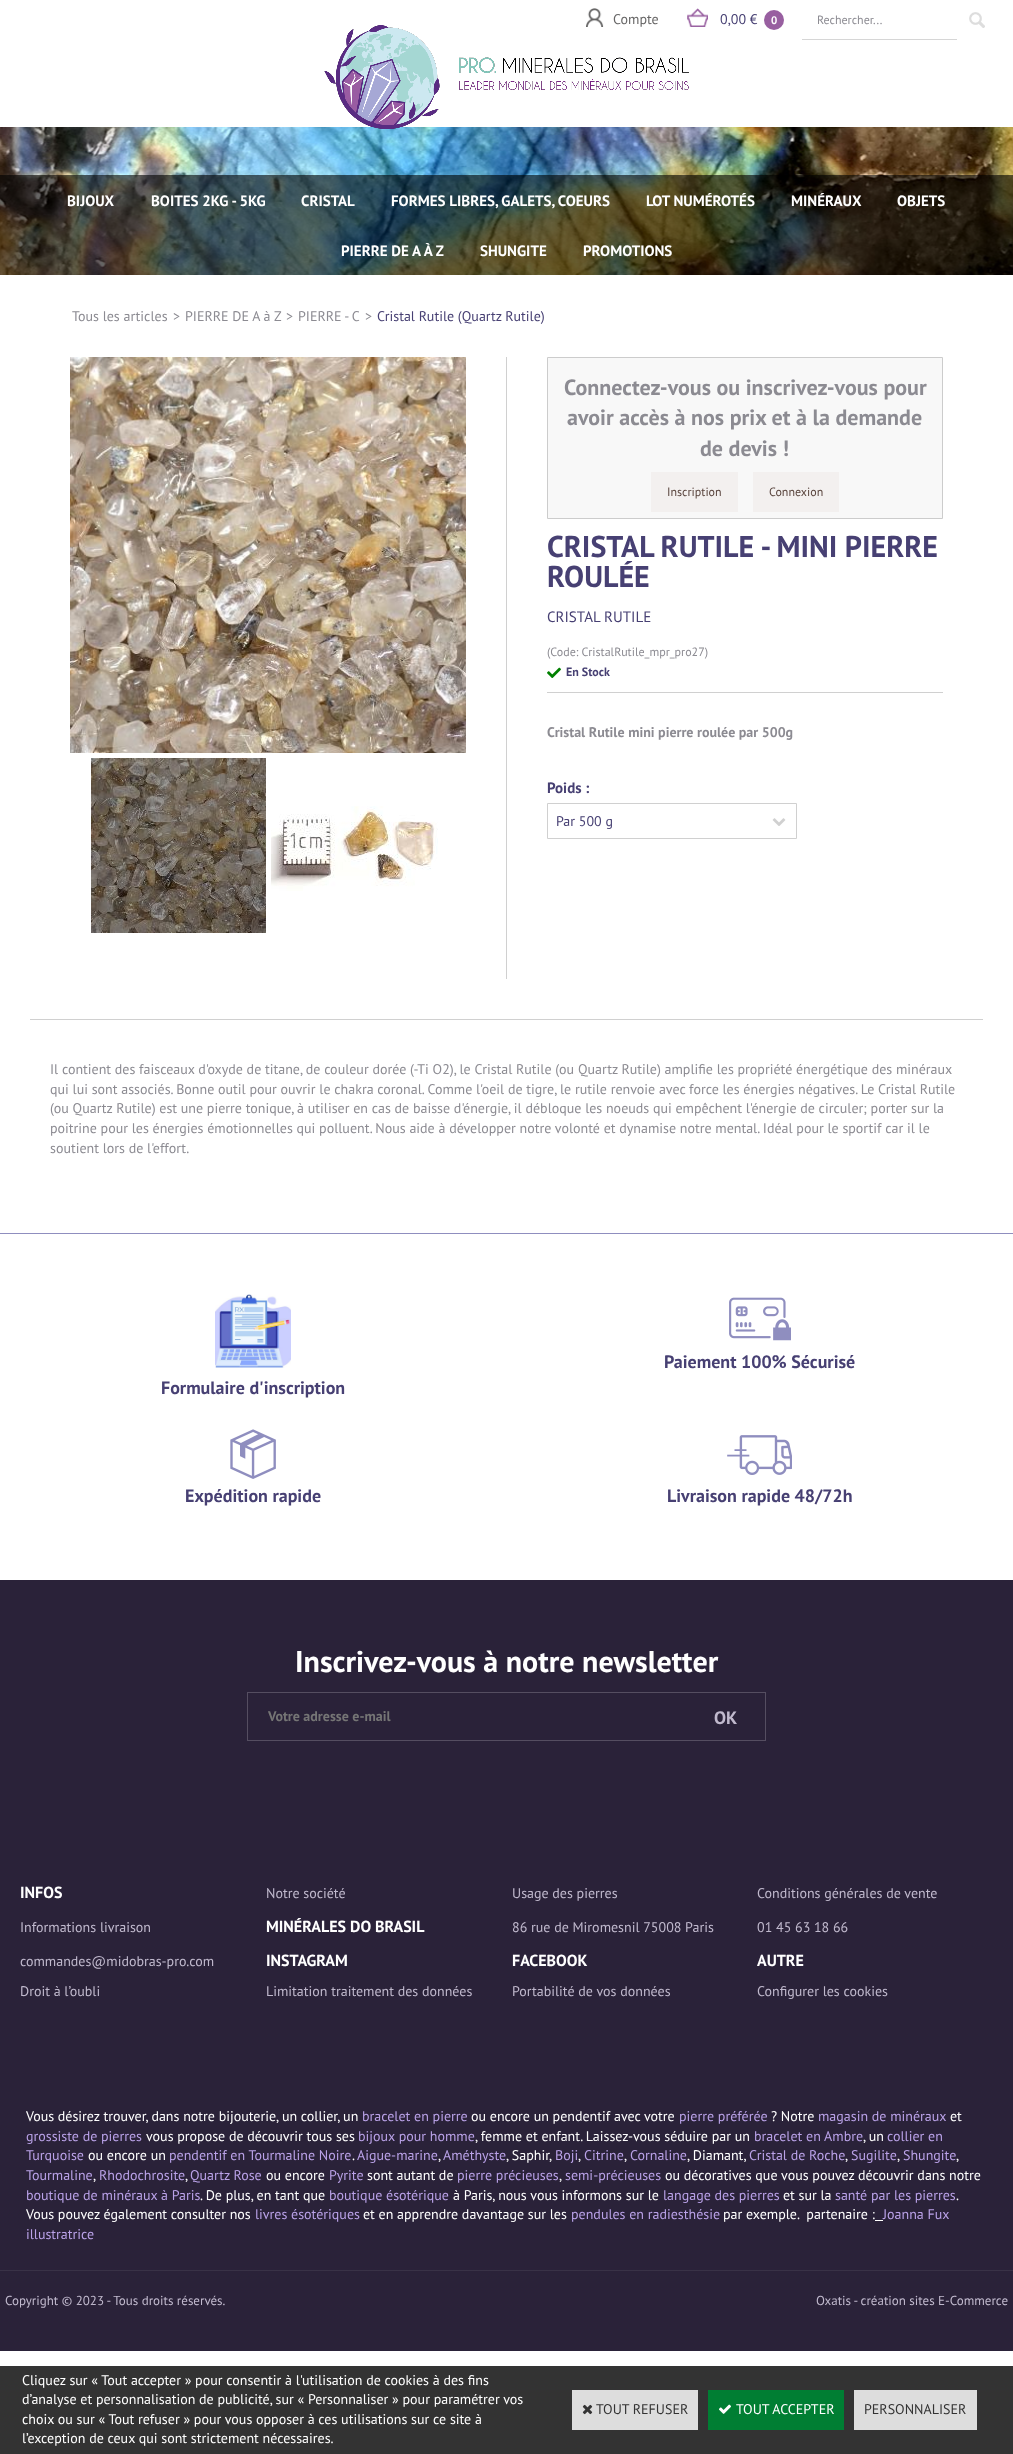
<svg xmlns="http://www.w3.org/2000/svg" width="1013" height="2454" viewBox="0 0 1013 2454">
  <rect width="100%" height="100%" fill="#fff"/>
  <image x="0" y="127" width="1013" height="148" href="img/1.png"/>
  <image x="324" y="25" width="365" height="104" href="img/5.png"/>
  <image x="586" y="8" width="18" height="19" href="img/2.png"/>
  <image x="687" y="8" width="21" height="19" href="img/3.png"/>
  <circle cx="774" cy="20" r="10" fill="#985fa0"/>
  <path d="M801 39h156v1H801z" fill="#d6d6d6"/>
  <path d="M801 39h1v1H801z" fill="#fff"/>
  <image x="969" y="12" width="16" height="16" href="img/4.png"/>
  <path d="M0 175h1013v100H0z" fill="#00000099"/>
  <image x="70" y="357" width="396" height="396" href="img/6.png"/>
  <image x="91" y="758" width="175" height="175" href="img/7.png"/>
  <image x="271" y="806" width="167" height="85" href="img/8.png"/>
  <path d="M506 357h1v622H506z" fill="#d0d0d0"/>
  <path d="M547.5 357.5h395v161H547.5z" fill="#f8f8f8" stroke="#ccc"/>
  <path d="M651 472h87v40H651z" fill="#f3f0ef"/>
  <path d="M753 472h86v40H753z" fill="#f3f0ef"/>
  <path d="M547 692h396v1H547z" fill="#d0d0d0"/>
  <image x="547" y="667" width="14" height="11" href="img/9.png"/>
  <path d="M547.5 803.5h249v35H547.5z" fill="none" stroke="#d0d0d0"/>
  <image x="772" y="818" width="14" height="8" href="img/10.png"/>
  <path d="M30 1019h953v1H30z" fill="#d0d0d0"/>
  <path d="M0 1580h1013v771H0z" fill="#2a2239"/>
  <path d="M0 1233h1013v1H0z" fill="#8f8ebf"/>
  <image x="729" y="1297" width="62" height="44" href="img/11.png"/>
  <image x="215" y="1294" width="76" height="74" href="img/12.png"/>
  <image x="230" y="1429" width="46" height="50" href="img/13.png"/>
  <image x="727" y="1435" width="65" height="40" href="img/14.png"/>
  <path d="M247 1692h519v1H247z" fill="#554e61"/>
  <path d="M247 1740h440v1H247z" fill="#554e61"/>
  <path d="M247 1692h1v49H247z" fill="#554e61"/>
  <path d="M765 1692h1v49H765z" fill="#554e61"/>
  <path d="M686 1740h80v1H686z" fill="#554e61"/>
  <path d="M875 2220h8v1H875z" fill="#fff"/>
  <path d="M0 2270h1013v1H0z" fill="#393247"/>
  <path d="M0 2366h1013v88H0z" fill="#333"/>
  <path d="M572 2390h126v40H572z" fill="#ddd"/>
  <image x="582" y="2404" width="11" height="11" href="img/15.png"/>
  <path d="M708 2390h136v40H708z" fill="#007e33"/>
  <image x="719" y="2404" width="12" height="10" href="img/16.png"/>
  <path d="M854 2390h123v40H854z" fill="#ddd"/>
  <text x="613" y="24" font-family="PT Sans" font-size="14" fill="#676666">Compte</text>
  <text x="720" y="24" font-family="PT Sans" font-size="14" fill="#474073">0,00 €</text>
  <text x="771" y="24" font-family="PT Sans" font-size="11" font-weight="bold" fill="#fff">0</text>
  <text x="817" y="24" font-family="PT Sans" font-size="12" fill="#8c8b92">Rechercher...</text>
  <g font-family="PT Sans" font-size="15" font-weight="bold" fill="#fff">
    <text x="67" y="206">BIJOUX</text>
    <text x="151" y="206">BOITES 2KG - 5KG</text>
    <text x="301" y="206">CRISTAL</text>
    <text x="391" y="206">FORMES LIBRES, GALETS, COEURS</text>
    <text x="646" y="206">LOT NUMÉROTÉS</text>
    <text x="791" y="206">MINÉRAUX</text>
    <text x="897" y="206">OBJETS</text>
    <text x="341" y="256">PIERRE DE A À Z</text>
    <text x="480" y="256">SHUNGITE</text>
    <text x="583" y="256">PROMOTIONS</text>
  </g>
  <g font-family="PT Sans" font-size="14" fill="#8c8b92">
    <text x="72" y="321">Tous les articles</text>
    <text x="173" y="321">&gt;</text>
    <text x="185" y="321">PIERRE DE A à Z</text>
    <text x="286" y="321">&gt;</text>
    <text x="298" y="321">PIERRE - C</text>
    <text x="365" y="321">&gt;</text>
  </g>
  <text x="377" y="321" font-family="PT Sans" font-size="14" fill="#474073">Cristal Rutile (Quartz Rutile)</text>
  <g font-family="PT Sans" font-size="22" font-weight="bold" fill="#8c8b92">
    <text x="564" y="395">Connectez-vous ou inscrivez-vous pour</text>
    <text x="567" y="425">avoir accès à nos prix et à la demande</text>
    <text x="700" y="456">de devis !</text>
  </g>
  <g font-family="PT Sans" font-size="12" fill="#58433c">
    <text x="667" y="496">Inscription</text>
    <text x="769" y="496">Connexion</text>
  </g>
  <g font-family="PT Sans" font-size="30" font-weight="bold" fill="#474073">
    <text x="547" y="557">CRISTAL RUTILE - MINI PIERRE</text>
    <text x="547" y="587">ROULÉE</text>
  </g>
  <text x="547" y="622" font-family="PT Sans" font-size="15" fill="#474073">CRISTAL RUTILE</text>
  <text x="547" y="656" font-family="PT Sans" font-size="12" fill="#8c8b92">(Code: CristalRutile_mpr_pro27)</text>
  <text x="566" y="676" font-family="PT Sans" font-size="12" font-weight="bold" fill="#474073">En Stock</text>
  <text x="547" y="737" font-family="PT Sans" font-size="14" font-weight="bold" fill="#8c8b92">Cristal Rutile mini pierre roulée par 500g</text>
  <text x="547" y="793" font-family="PT Sans" font-size="15" font-weight="bold" fill="#474073">Poids :</text>
  <text x="556" y="826" font-family="PT Sans" font-size="14" fill="#474073">Par 500 g</text>
  <g font-family="PT Sans" font-size="14" fill="#8c8b92">
    <text x="50" y="1074">Il contient des faisceaux d'oxyde de titane, de couleur dorée (-Ti O2), le Cristal Rutile (ou Quartz Rutile) amplifie les propriété énergétique des minéraux</text>
    <text x="50" y="1094">qui lui sont associés. Bonne outil pour ouvrir le chakra coronal. Comme l'oeil de tigre, le rutile renvoie avec force les énergies négatives. Le Cristal Rutile</text>
    <text x="50" y="1113">(ou Quartz Rutile) est une pierre tonique, à utiliser en cas de baisse d'énergie, il débloque les noeuds qui empêchent l'énergie de circuler; porter sur la</text>
    <text x="50" y="1133">poitrine pour les énergies émotionnelles qui polluent. Nous aide à développer notre volonté et dynamise notre mental. Idéal pour le sportif car il le</text>
    <text x="50" y="1153">soutient lors de l'effort.</text>
  </g>
  <g font-family="PT Sans" font-size="18" font-weight="bold" fill="#474073">
    <text x="664" y="1368">Paiement 100% Sécurisé</text>
    <text x="161" y="1394">Formulaire d'inscription</text>
    <text x="185" y="1502">Expédition rapide</text>
    <text x="667" y="1502">Livraison rapide 48/72h</text>
  </g>
  <text x="295" y="1672" font-family="PT Sans" font-size="30" font-weight="bold" fill="#fff">Inscrivez-vous à notre newsletter</text>
  <text x="268" y="1721" font-family="PT Sans" font-size="14" font-weight="bold" fill="#757575">Votre adresse e-mail</text>
  <text x="714" y="1724" font-family="PT Sans" font-size="18" font-weight="bold" fill="#c0b9cd">OK</text>
  <text x="20" y="1898" font-family="PT Sans" font-size="16" font-weight="bold" fill="#fff">INFOS</text>
  <g font-family="PT Sans" font-size="14" fill="#c0b9cd">
    <text x="266" y="1898">Notre société</text>
    <text x="512" y="1898">Usage des pierres</text>
    <text x="757" y="1898">Conditions générales de vente</text>
    <text x="20" y="1932">Informations livraison</text>
  </g>
  <text x="266" y="1932" font-family="PT Sans" font-size="16" font-weight="bold" fill="#fff">MINÉRALES DO BRASIL</text>
  <g font-family="PT Sans" font-size="14" fill="#c0b9cd">
    <text x="512" y="1932">86 rue de Miromesnil 75008 Paris</text>
    <text x="757" y="1932">01 45 63 18 66</text>
    <text x="20" y="1966">commandes@midobras-pro.com</text>
  </g>
  <g font-family="PT Sans" font-size="16" font-weight="bold" fill="#fff">
    <text x="266" y="1966">INSTAGRAM</text>
    <text x="512" y="1966">FACEBOOK</text>
    <text x="757" y="1966">AUTRE</text>
  </g>
  <g font-family="PT Sans" font-size="14" fill="#c0b9cd">
    <text x="20" y="1996">Droit à l’oubli</text>
    <text x="266" y="1996">Limitation traitement des données</text>
    <text x="512" y="1996">Portabilité de vos données</text>
    <text x="757" y="1996">Configurer les cookies</text>
  </g>
  <text x="26" y="2121" font-family="PT Sans" font-size="14" fill="#fff">Vous désirez trouver, dans notre bijouterie, un collier, un</text>
  <text x="362" y="2121" font-family="PT Sans" font-size="14" fill="#baa2e8">bracelet en pierre</text>
  <text x="471" y="2121" font-family="PT Sans" font-size="14" fill="#fff">ou encore un pendentif avec votre</text>
  <text x="679" y="2121" font-family="PT Sans" font-size="14" fill="#baa2e8">pierre préférée</text>
  <text x="771" y="2121" font-family="PT Sans" font-size="14" fill="#fff">? Notre</text>
  <text x="818" y="2121" font-family="PT Sans" font-size="14" fill="#baa2e8">magasin de minéraux</text>
  <text x="950" y="2121" font-family="PT Sans" font-size="14" fill="#fff">et</text>
  <text x="26" y="2141" font-family="PT Sans" font-size="14" fill="#baa2e8">grossiste de pierres</text>
  <text x="146" y="2141" font-family="PT Sans" font-size="14" fill="#fff">vous propose de découvrir tous ses</text>
  <text x="358" y="2141" font-family="PT Sans" font-size="14" fill="#baa2e8">bijoux pour homme</text>
  <text x="475" y="2141" font-family="PT Sans" font-size="14" fill="#fff">, femme et enfant. Laissez-vous séduire par un</text>
  <text x="754" y="2141" font-family="PT Sans" font-size="14" fill="#baa2e8">bracelet en Ambre</text>
  <text x="863" y="2141" font-family="PT Sans" font-size="14" fill="#fff">, un</text>
  <g font-family="PT Sans" font-size="14" fill="#baa2e8">
    <text x="887" y="2141">collier en</text>
    <text x="26" y="2160">Turquoise</text>
  </g>
  <text x="88" y="2160" font-family="PT Sans" font-size="14" fill="#fff">ou encore un</text>
  <text x="169" y="2160" font-family="PT Sans" font-size="14" fill="#baa2e8">pendentif en Tourmaline Noire</text>
  <text x="352" y="2160" font-family="PT Sans" font-size="14" fill="#fff">.</text>
  <text x="357" y="2160" font-family="PT Sans" font-size="14" fill="#baa2e8">Aigue-marine</text>
  <text x="438" y="2160" font-family="PT Sans" font-size="14" fill="#fff">,</text>
  <text x="443" y="2160" font-family="PT Sans" font-size="14" fill="#baa2e8">Améthyste</text>
  <text x="506" y="2160" font-family="PT Sans" font-size="14" fill="#fff">, Saphir,</text>
  <text x="555" y="2160" font-family="PT Sans" font-size="14" fill="#baa2e8">Boji</text>
  <text x="578" y="2160" font-family="PT Sans" font-size="14" fill="#fff">,</text>
  <text x="584" y="2160" font-family="PT Sans" font-size="14" fill="#baa2e8">Citrine</text>
  <text x="624" y="2160" font-family="PT Sans" font-size="14" fill="#fff">,</text>
  <text x="630" y="2160" font-family="PT Sans" font-size="14" fill="#baa2e8">Cornaline</text>
  <text x="687" y="2160" font-family="PT Sans" font-size="14" fill="#fff">, Diamant,</text>
  <text x="749" y="2160" font-family="PT Sans" font-size="14" fill="#baa2e8">Cristal de Roche</text>
  <text x="845" y="2160" font-family="PT Sans" font-size="14" fill="#fff">,</text>
  <text x="851" y="2160" font-family="PT Sans" font-size="14" fill="#baa2e8">Sugilite</text>
  <text x="897" y="2160" font-family="PT Sans" font-size="14" fill="#fff">,</text>
  <text x="903" y="2160" font-family="PT Sans" font-size="14" fill="#baa2e8">Shungite</text>
  <text x="956" y="2160" font-family="PT Sans" font-size="14" fill="#fff">,</text>
  <text x="26" y="2180" font-family="PT Sans" font-size="14" fill="#baa2e8">Tourmaline</text>
  <text x="93" y="2180" font-family="PT Sans" font-size="14" fill="#fff">,</text>
  <text x="99" y="2180" font-family="PT Sans" font-size="14" fill="#baa2e8">Rhodochrosite</text>
  <text x="185" y="2180" font-family="PT Sans" font-size="14" fill="#fff">,</text>
  <text x="190" y="2180" font-family="PT Sans" font-size="14" fill="#baa2e8">Quartz Rose</text>
  <text x="266" y="2180" font-family="PT Sans" font-size="14" fill="#fff">ou encore</text>
  <text x="329" y="2180" font-family="PT Sans" font-size="14" fill="#baa2e8">Pyrite</text>
  <text x="367" y="2180" font-family="PT Sans" font-size="14" fill="#fff">sont autant de</text>
  <text x="457" y="2180" font-family="PT Sans" font-size="14" fill="#baa2e8">pierre précieuses</text>
  <text x="559" y="2180" font-family="PT Sans" font-size="14" fill="#fff">,</text>
  <text x="565" y="2180" font-family="PT Sans" font-size="14" fill="#baa2e8">semi-précieuses</text>
  <text x="665" y="2180" font-family="PT Sans" font-size="14" fill="#fff">ou décoratives que vous pouvez découvrir dans notre</text>
  <text x="26" y="2200" font-family="PT Sans" font-size="14" fill="#baa2e8">boutique de minéraux à Paris</text>
  <text x="200" y="2200" font-family="PT Sans" font-size="14" fill="#fff">. De plus, en tant que</text>
  <text x="329" y="2200" font-family="PT Sans" font-size="14" fill="#baa2e8">boutique ésotérique</text>
  <text x="453" y="2200" font-family="PT Sans" font-size="14" fill="#fff">à Paris, nous vous informons sur le</text>
  <text x="663" y="2200" font-family="PT Sans" font-size="14" fill="#baa2e8">langage des pierres</text>
  <text x="783" y="2200" font-family="PT Sans" font-size="14" fill="#fff">et sur la</text>
  <text x="835" y="2200" font-family="PT Sans" font-size="14" fill="#baa2e8">santé par les pierres</text>
  <g font-family="PT Sans" font-size="14" fill="#fff">
    <text x="956" y="2200">.</text>
    <text x="26" y="2219">Vous pouvez également consulter nos</text>
  </g>
  <text x="255" y="2219" font-family="PT Sans" font-size="14" fill="#baa2e8">livres ésotériques</text>
  <text x="363" y="2219" font-family="PT Sans" font-size="14" fill="#fff">et en apprendre davantage sur les</text>
  <text x="571" y="2219" font-family="PT Sans" font-size="14" fill="#baa2e8">pendules en radiesthésie</text>
  <text x="723" y="2219" font-family="PT Sans" font-size="14" fill="#fff" xml:space="preserve">par exemple.  partenaire :</text>
  <g font-family="PT Sans" font-size="14" fill="#baa2e8">
    <text x="883" y="2219">Joanna Fux</text>
    <text x="26" y="2239">illustratrice</text>
  </g>
  <g font-family="PT Sans" font-size="13" fill="#c0b9cd">
    <text x="5" y="2305">Copyright © 2023 - Tous droits réservés.</text>
    <text x="816" y="2305">Oxatis - création sites E-Commerce</text>
  </g>
  <g font-family="PT Sans" font-size="14" fill="#fff">
    <text x="22" y="2385">Cliquez sur « Tout accepter » pour consentir à l'utilisation de cookies à des fins</text>
    <text x="22" y="2404">d’analyse et personnalisation de publicité, sur « Personnaliser » pour paramétrer vos</text>
    <text x="22" y="2424">choix ou sur « Tout refuser » pour vous opposer à ces utilisations sur ce site à</text>
    <text x="22" y="2443">l’exception de ceux qui sont strictement nécessaires.</text>
  </g>
  <text x="596" y="2414" font-family="PT Sans" font-size="14" fill="#333">TOUT REFUSER</text>
  <text x="736" y="2414" font-family="PT Sans" font-size="14" fill="#fff">TOUT ACCEPTER</text>
  <text x="864" y="2414" font-family="PT Sans" font-size="14" fill="#333">PERSONNALISER</text>
</svg>
